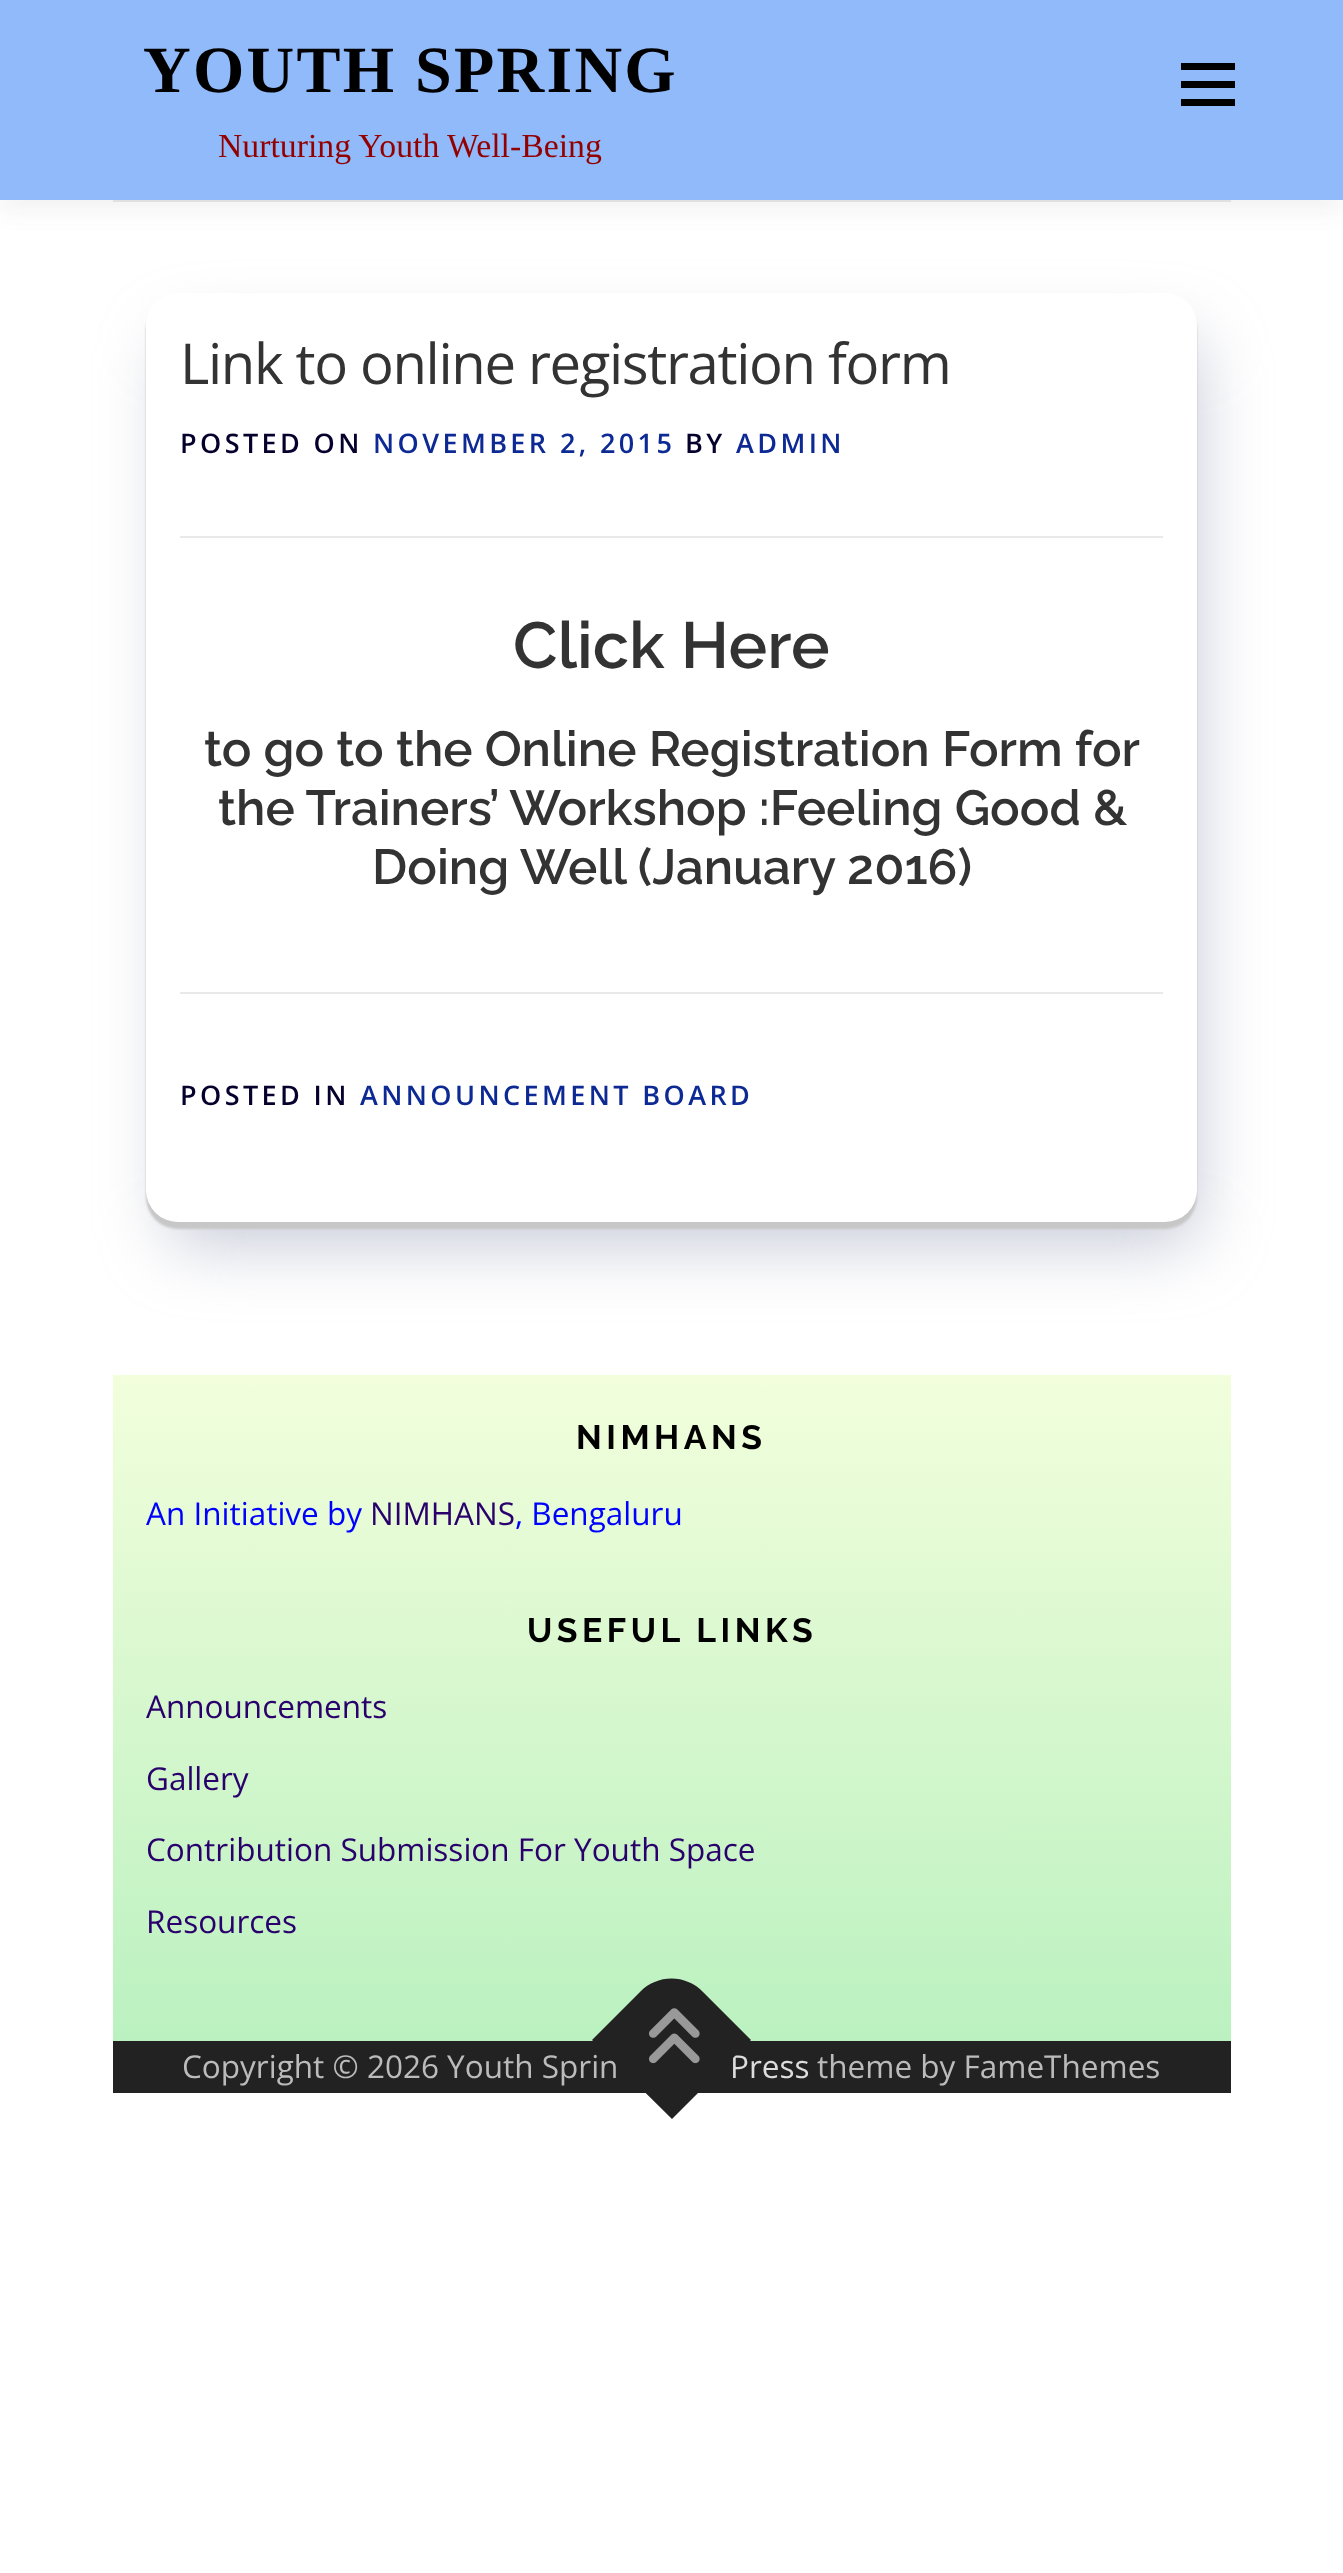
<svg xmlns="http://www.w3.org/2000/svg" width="1343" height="2573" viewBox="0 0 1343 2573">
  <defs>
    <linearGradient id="g1" gradientUnits="userSpaceOnUse" x1="672" y1="1375" x2="672" y2="2041"><stop offset="0" stop-color="#f2fedc"/><stop offset="1" stop-color="#bbf1c0"/></linearGradient>
  </defs>
  <rect width="100%" height="100%" fill="#fff"/>
  <path d="M113 200h1118v2H113z" fill="#e9e9e9"/>
  <path d="M0 11h1343v201H0z" fill="#3232320f" filter="blur(11px)"/>
  <path d="M0 0h1343v200H0z" fill="#90baf9"/>
  <path d="M1181 81h54v7H1181z" fill="#000"/>
  <path d="M1181 63h54v7H1181z" fill="#000"/>
  <path d="M1181 99h54v7H1181z" fill="#000"/>
  <rect x="169" y="338" width="1028" height="906" rx="20" fill="#9ca0b98f" filter="blur(34px)"/>
  <rect x="146" y="299" width="1051" height="930" rx="32" fill="#c7c7c7" filter="blur(1px)"/>
  <rect x="146" y="293" width="1051" height="929" rx="32" fill="#fff"/>
  <path d="M180 536h983v2H180z" fill="#e9e9e9"/>
  <path d="M180 992h983v2H180z" fill="#e9e9e9"/>
  <path d="M113 1375h1118v666H113z" fill="url(#g1)"/>
  <path d="M113 2041h1118v52H113z" fill="#222"/>
  <text x="143" y="92" font-family="Liberation Serif" font-size="66" font-weight="bold" letter-spacing="2.25" fill="#000">YOUTH SPRING</text>
  <text x="218" y="157" font-family="Liberation Serif" font-size="33.75" fill="#930000">Nurturing Youth Well-Being</text>
  <text x="180" y="384" font-family="Open Sans" font-size="56.25" letter-spacing="-1.35" fill="#333">Link to online registration form</text>
  <text x="180" y="453" font-family="Open Sans" font-size="27" font-weight="600" letter-spacing="3.4" fill="#06002d">POSTED ON</text>
  <text x="373" y="453" font-family="Open Sans" font-size="27" font-weight="600" letter-spacing="3.4" fill="#0d2994">NOVEMBER 2, 2015</text>
  <text x="685" y="453" font-family="Open Sans" font-size="27" font-weight="600" letter-spacing="3.4" fill="#06002d">BY</text>
  <text x="736" y="453" font-family="Open Sans" font-size="27" font-weight="600" letter-spacing="3.4" fill="#0d2994">ADMIN</text>
  <text x="513" y="668" font-family="Raleway" font-size="65" font-weight="600" fill="#333">Click Here</text>
  <g font-family="Raleway" font-size="49.25" font-weight="600" fill="#333">
    <text x="204" y="766">to go to the Online Registration Form for</text>
    <text x="218" y="825">the Trainers’ Workshop :Feeling Good &amp;</text>
    <text x="372" y="884">Doing Well (January 2016)</text>
  </g>
  <text x="180" y="1105" font-family="Open Sans" font-size="27" font-weight="600" letter-spacing="3.4" fill="#06002d">POSTED IN</text>
  <text x="360" y="1105" font-family="Open Sans" font-size="27" font-weight="600" letter-spacing="3.4" fill="#0d2994">ANNOUNCEMENT BOARD</text>
  <text x="576" y="1449" font-family="Raleway" font-size="33.75" font-weight="bold" letter-spacing="4.5" fill="#000">NIMHANS</text>
  <text x="146" y="1525" font-family="Open Sans" font-size="31.5" fill="#00f">An Initiative by</text>
  <text x="370" y="1525" font-family="Open Sans" font-size="31.5" fill="#29006c">NIMHANS</text>
  <text x="515" y="1525" font-family="Open Sans" font-size="31.5" fill="#00f">, Bengaluru</text>
  <text x="527" y="1642" font-family="Raleway" font-size="33.75" font-weight="bold" letter-spacing="4.5" fill="#000">USEFUL LINKS</text>
  <g font-family="Open Sans" font-size="31.5" fill="#29006c">
    <text x="146" y="1718">Announcements</text>
    <text x="146" y="1790">Gallery</text>
    <text x="146" y="1861">Contribution Submission For Youth Space</text>
    <text x="146" y="1933">Resources</text>
  </g>
  <text x="182" y="2078" font-family="Open Sans" font-size="31.5" fill="#bbb">Copyright © 2026 Youth Sprin</text>
  <text x="730" y="2078" font-family="Open Sans" font-size="31.5" fill="#ddd">Press</text>
  <path d="M592 2040L640 1992C657 1974 686 1974 703 1992L751 2040L672 2119Z" fill="#222"/>
  <image x="649" y="2008" width="51" height="56" href="img/1.png"/>
  <text x="817" y="2078" font-family="Open Sans" font-size="31.5" fill="#bbb">theme by FameThemes</text>
</svg>
